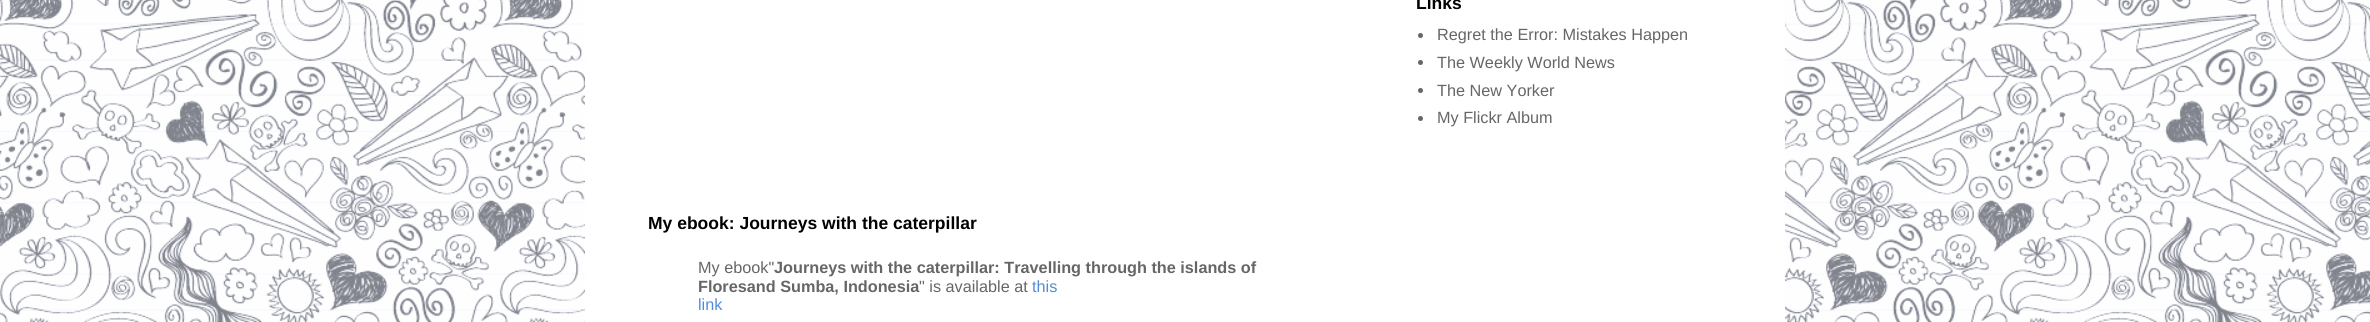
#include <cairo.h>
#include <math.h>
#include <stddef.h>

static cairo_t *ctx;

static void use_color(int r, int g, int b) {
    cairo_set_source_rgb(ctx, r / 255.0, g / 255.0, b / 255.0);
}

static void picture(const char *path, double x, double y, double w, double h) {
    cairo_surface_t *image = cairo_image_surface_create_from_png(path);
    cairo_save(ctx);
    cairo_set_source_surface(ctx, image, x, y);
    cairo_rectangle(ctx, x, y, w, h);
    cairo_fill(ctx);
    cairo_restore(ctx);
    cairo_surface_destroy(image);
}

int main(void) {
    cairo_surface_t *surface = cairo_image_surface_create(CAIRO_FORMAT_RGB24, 2370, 322);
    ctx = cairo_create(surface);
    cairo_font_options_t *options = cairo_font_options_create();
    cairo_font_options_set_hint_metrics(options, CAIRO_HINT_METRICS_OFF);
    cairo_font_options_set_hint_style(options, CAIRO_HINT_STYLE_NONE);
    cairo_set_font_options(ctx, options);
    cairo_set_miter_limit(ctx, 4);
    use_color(207, 217, 246);
    cairo_paint(ctx);
    picture("img1.png", 0, 0, 2370, 322);
    use_color(255, 255, 255);
    cairo_rectangle(ctx, 585, 0, 1200, 322);
    cairo_fill(ctx);
    cairo_select_font_face(ctx, "Liberation Sans", CAIRO_FONT_SLANT_NORMAL, CAIRO_FONT_WEIGHT_BOLD);
    cairo_set_font_size(ctx, 17.5);
    use_color(0, 0, 0);
    cairo_move_to(ctx, 1416, 9);
    cairo_show_text(ctx, "Links");
    use_color(102, 102, 102);
    cairo_new_path(ctx);
    cairo_arc(ctx, 1420.5, 35.5, 2.5, 0, 2 * M_PI);
    cairo_fill(ctx);
    cairo_select_font_face(ctx, "Liberation Sans", CAIRO_FONT_SLANT_NORMAL, CAIRO_FONT_WEIGHT_NORMAL);
    cairo_set_font_size(ctx, 16.25);
    cairo_move_to(ctx, 1437, 40);
    cairo_show_text(ctx, "Regret the Error: Mistakes Happen");
    cairo_new_path(ctx);
    cairo_arc(ctx, 1420.5, 62.5, 2.5, 0, 2 * M_PI);
    cairo_fill(ctx);
    cairo_move_to(ctx, 1437, 68);
    cairo_show_text(ctx, "The Weekly World News");
    cairo_new_path(ctx);
    cairo_arc(ctx, 1420.5, 90.5, 2.5, 0, 2 * M_PI);
    cairo_fill(ctx);
    cairo_move_to(ctx, 1437, 96);
    cairo_show_text(ctx, "The New Yorker");
    cairo_new_path(ctx);
    cairo_arc(ctx, 1420.5, 118.5, 2.5, 0, 2 * M_PI);
    cairo_fill(ctx);
    cairo_move_to(ctx, 1437, 123);
    cairo_show_text(ctx, "My Flickr Album");
    cairo_select_font_face(ctx, "Liberation Sans", CAIRO_FONT_SLANT_NORMAL, CAIRO_FONT_WEIGHT_BOLD);
    cairo_set_font_size(ctx, 17.5);
    use_color(0, 0, 0);
    cairo_move_to(ctx, 648, 229);
    cairo_show_text(ctx, "My ebook: Journeys with the caterpillar");
    cairo_select_font_face(ctx, "Liberation Sans", CAIRO_FONT_SLANT_NORMAL, CAIRO_FONT_WEIGHT_NORMAL);
    cairo_set_font_size(ctx, 16.25);
    use_color(102, 102, 102);
    cairo_move_to(ctx, 698, 273);
    cairo_show_text(ctx, "My ebook\"");
    cairo_select_font_face(ctx, "Liberation Sans", CAIRO_FONT_SLANT_NORMAL, CAIRO_FONT_WEIGHT_BOLD);
    cairo_move_to(ctx, 774, 273);
    cairo_show_text(ctx, "Journeys with the caterpillar: Travelling through the islands of");
    cairo_move_to(ctx, 698, 292);
    cairo_show_text(ctx, "Floresand Sumba, Indonesia");
    cairo_select_font_face(ctx, "Liberation Sans", CAIRO_FONT_SLANT_NORMAL, CAIRO_FONT_WEIGHT_NORMAL);
    cairo_move_to(ctx, 919, 292);
    cairo_show_text(ctx, "\" is available at");
    use_color(83, 140, 214);
    cairo_move_to(ctx, 1032, 292);
    cairo_show_text(ctx, "this");
    cairo_move_to(ctx, 698, 310);
    cairo_show_text(ctx, "link");
    cairo_surface_write_to_png(surface, "result.png");
    cairo_font_options_destroy(options);
    cairo_destroy(ctx);
    cairo_surface_destroy(surface);
    return 0;
}
